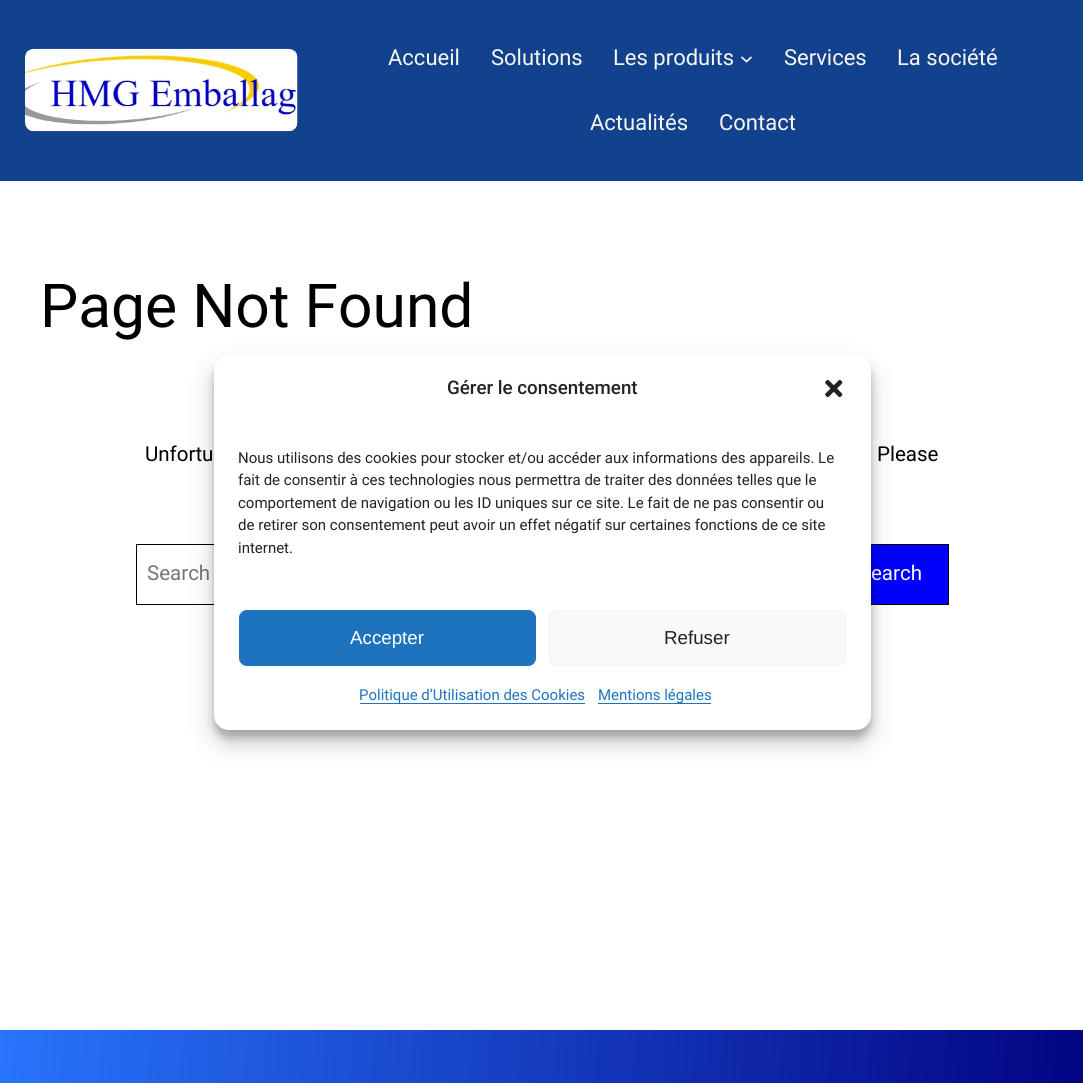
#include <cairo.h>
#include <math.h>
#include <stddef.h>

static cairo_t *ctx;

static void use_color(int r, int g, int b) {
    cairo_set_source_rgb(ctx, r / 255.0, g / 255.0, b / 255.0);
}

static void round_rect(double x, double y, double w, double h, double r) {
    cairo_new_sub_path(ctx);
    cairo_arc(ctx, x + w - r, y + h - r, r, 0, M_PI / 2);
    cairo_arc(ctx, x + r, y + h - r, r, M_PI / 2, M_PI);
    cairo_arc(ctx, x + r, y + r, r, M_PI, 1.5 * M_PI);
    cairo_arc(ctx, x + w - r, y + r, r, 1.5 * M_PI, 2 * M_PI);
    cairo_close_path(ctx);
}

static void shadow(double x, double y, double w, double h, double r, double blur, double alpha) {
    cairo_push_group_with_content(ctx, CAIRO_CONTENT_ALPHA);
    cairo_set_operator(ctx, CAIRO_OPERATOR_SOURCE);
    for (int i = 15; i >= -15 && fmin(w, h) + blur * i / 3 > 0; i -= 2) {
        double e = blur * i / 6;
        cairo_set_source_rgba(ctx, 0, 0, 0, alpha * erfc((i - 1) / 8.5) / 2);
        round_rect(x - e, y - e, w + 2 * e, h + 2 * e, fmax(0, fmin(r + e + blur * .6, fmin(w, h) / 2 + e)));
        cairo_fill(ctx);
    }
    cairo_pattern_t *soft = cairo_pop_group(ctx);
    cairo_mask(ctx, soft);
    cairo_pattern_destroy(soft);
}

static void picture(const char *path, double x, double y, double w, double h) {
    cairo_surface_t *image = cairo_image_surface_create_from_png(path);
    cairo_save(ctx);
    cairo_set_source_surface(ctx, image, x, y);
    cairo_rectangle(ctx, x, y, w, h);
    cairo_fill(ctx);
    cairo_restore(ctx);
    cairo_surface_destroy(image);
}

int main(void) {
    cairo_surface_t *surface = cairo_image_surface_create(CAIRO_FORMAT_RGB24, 1083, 1083);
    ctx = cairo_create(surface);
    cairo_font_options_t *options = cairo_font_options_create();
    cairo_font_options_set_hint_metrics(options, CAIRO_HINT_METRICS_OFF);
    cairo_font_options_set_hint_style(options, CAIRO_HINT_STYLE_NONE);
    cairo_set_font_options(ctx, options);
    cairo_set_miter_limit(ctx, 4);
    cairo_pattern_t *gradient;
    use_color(255, 255, 255);
    cairo_paint(ctx);
    use_color(18, 65, 141);
    cairo_rectangle(ctx, 0, 0, 1083, 181);
    cairo_fill(ctx);
    picture("img1.png", 25, 48, 273, 84);
    cairo_select_font_face(ctx, "Roboto", CAIRO_FONT_SLANT_NORMAL, CAIRO_FONT_WEIGHT_NORMAL);
    cairo_set_font_size(ctx, 22);
    use_color(249, 247, 240);
    cairo_move_to(ctx, 388, 65);
    cairo_show_text(ctx, "Accueil");
    cairo_move_to(ctx, 491, 65);
    cairo_show_text(ctx, "Solutions");
    cairo_move_to(ctx, 613, 65);
    cairo_show_text(ctx, "Les produits");
    cairo_new_path(ctx);
    cairo_move_to(ctx, 741.5, 57);
    cairo_line_to(ctx, 746.5, 61.5);
    cairo_line_to(ctx, 751.5, 57);
    cairo_set_line_width(ctx, 1.7);
    cairo_stroke(ctx);
    cairo_move_to(ctx, 784, 65);
    cairo_show_text(ctx, "Services");
    cairo_move_to(ctx, 897, 65);
    cairo_show_text(ctx, "La société");
    cairo_move_to(ctx, 590, 130);
    cairo_show_text(ctx, "Actualités");
    cairo_move_to(ctx, 719, 130);
    cairo_show_text(ctx, "Contact");
    cairo_set_font_size(ctx, 60.5);
    use_color(0, 0, 0);
    cairo_move_to(ctx, 40, 327);
    cairo_show_text(ctx, "Page Not Found");
    cairo_set_font_size(ctx, 20.5);
    cairo_move_to(ctx, 145, 461);
    cairo_show_text(ctx, "Unfortu");
    cairo_move_to(ctx, 877, 461);
    cairo_show_text(ctx, "Please");
    cairo_rectangle(ctx, 136.5, 544.5, 683, 60);
    use_color(0, 0, 1);
    cairo_set_line_width(ctx, 1);
    cairo_stroke(ctx);
    use_color(117, 117, 117);
    cairo_move_to(ctx, 147, 580);
    cairo_show_text(ctx, "Search");
    use_color(0, 0, 255);
    cairo_rectangle(ctx, 871, 545, 77, 59);
    cairo_fill(ctx);
    cairo_rectangle(ctx, 833.5, 544.5, 115, 60);
    use_color(0, 0, 1);
    cairo_stroke(ctx);
    use_color(255, 255, 255);
    cairo_move_to(ctx, 871, 580);
    cairo_show_text(ctx, "earch");
    gradient = cairo_pattern_create_linear(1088, 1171, -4.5, 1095);
    cairo_pattern_add_color_stop_rgba(gradient, 0, 0.008, 0.012, 0.506, 1);
    cairo_pattern_add_color_stop_rgba(gradient, 1, 0.157, 0.455, 0.988, 1);
    cairo_set_source(ctx, gradient);
    cairo_pattern_destroy(gradient);
    cairo_rectangle(ctx, 0, 1030, 1083, 53);
    cairo_fill(ctx);
    use_color(0, 0, 0);
    shadow(214, 363, 657, 375, 15, 4, 0.23);
    shadow(214, 368, 657, 375, 15, 12.5, 0.19);
    use_color(255, 255, 255);
    round_rect(214, 355, 657, 375, 15);
    cairo_fill(ctx);
    cairo_select_font_face(ctx, "Roboto Medium", CAIRO_FONT_SLANT_NORMAL, CAIRO_FONT_WEIGHT_NORMAL);
    cairo_set_font_size(ctx, 18.75);
    use_color(34, 34, 34);
    cairo_move_to(ctx, 447, 394);
    cairo_show_text(ctx, "Gérer le consentement");
    picture("img2.png", 825, 379, 18, 19);
    cairo_select_font_face(ctx, "Roboto", CAIRO_FONT_SLANT_NORMAL, CAIRO_FONT_WEIGHT_NORMAL);
    cairo_set_font_size(ctx, 15);
    cairo_move_to(ctx, 238, 463);
    cairo_show_text(ctx, "Nous utilisons des cookies pour stocker et/ou accéder aux informations des appareils. Le");
    cairo_move_to(ctx, 238, 485);
    cairo_show_text(ctx, "fait de consentir à ces technologies nous permettra de traiter des données telles que le");
    cairo_move_to(ctx, 238, 508);
    cairo_show_text(ctx, "comportement de navigation ou les ID uniques sur ce site. Le fait de ne pas consentir ou");
    cairo_move_to(ctx, 238, 530);
    cairo_show_text(ctx, "de retirer son consentement peut avoir un effet négatif sur certaines fonctions de ce site");
    cairo_move_to(ctx, 238, 553);
    cairo_show_text(ctx, "internet.");
    use_color(30, 115, 190);
    round_rect(239.5, 610.5, 296, 55, 7.5);
    cairo_fill_preserve(ctx);
    cairo_stroke(ctx);
    cairo_select_font_face(ctx, "Liberation Sans", CAIRO_FONT_SLANT_NORMAL, CAIRO_FONT_WEIGHT_NORMAL);
    cairo_set_font_size(ctx, 18.75);
    use_color(255, 255, 255);
    cairo_move_to(ctx, 350, 644);
    cairo_show_text(ctx, "Accepter");
    use_color(249, 249, 249);
    round_rect(549.5, 610.5, 296, 55, 7.5);
    cairo_fill_preserve(ctx);
    use_color(242, 242, 242);
    cairo_stroke(ctx);
    use_color(34, 34, 34);
    cairo_move_to(ctx, 664, 644);
    cairo_show_text(ctx, "Refuser");
    use_color(30, 115, 190);
    cairo_rectangle(ctx, 360, 703, 225, 1);
    cairo_fill(ctx);
    cairo_select_font_face(ctx, "Roboto", CAIRO_FONT_SLANT_NORMAL, CAIRO_FONT_WEIGHT_NORMAL);
    cairo_set_font_size(ctx, 15);
    cairo_move_to(ctx, 359, 700);
    cairo_show_text(ctx, "Politique d’Utilisation des Cookies");
    cairo_rectangle(ctx, 598, 703, 113, 1);
    cairo_fill(ctx);
    cairo_move_to(ctx, 598, 700);
    cairo_show_text(ctx, "Mentions légales");
    cairo_surface_write_to_png(surface, "result.png");
    cairo_font_options_destroy(options);
    cairo_destroy(ctx);
    cairo_surface_destroy(surface);
    return 0;
}
